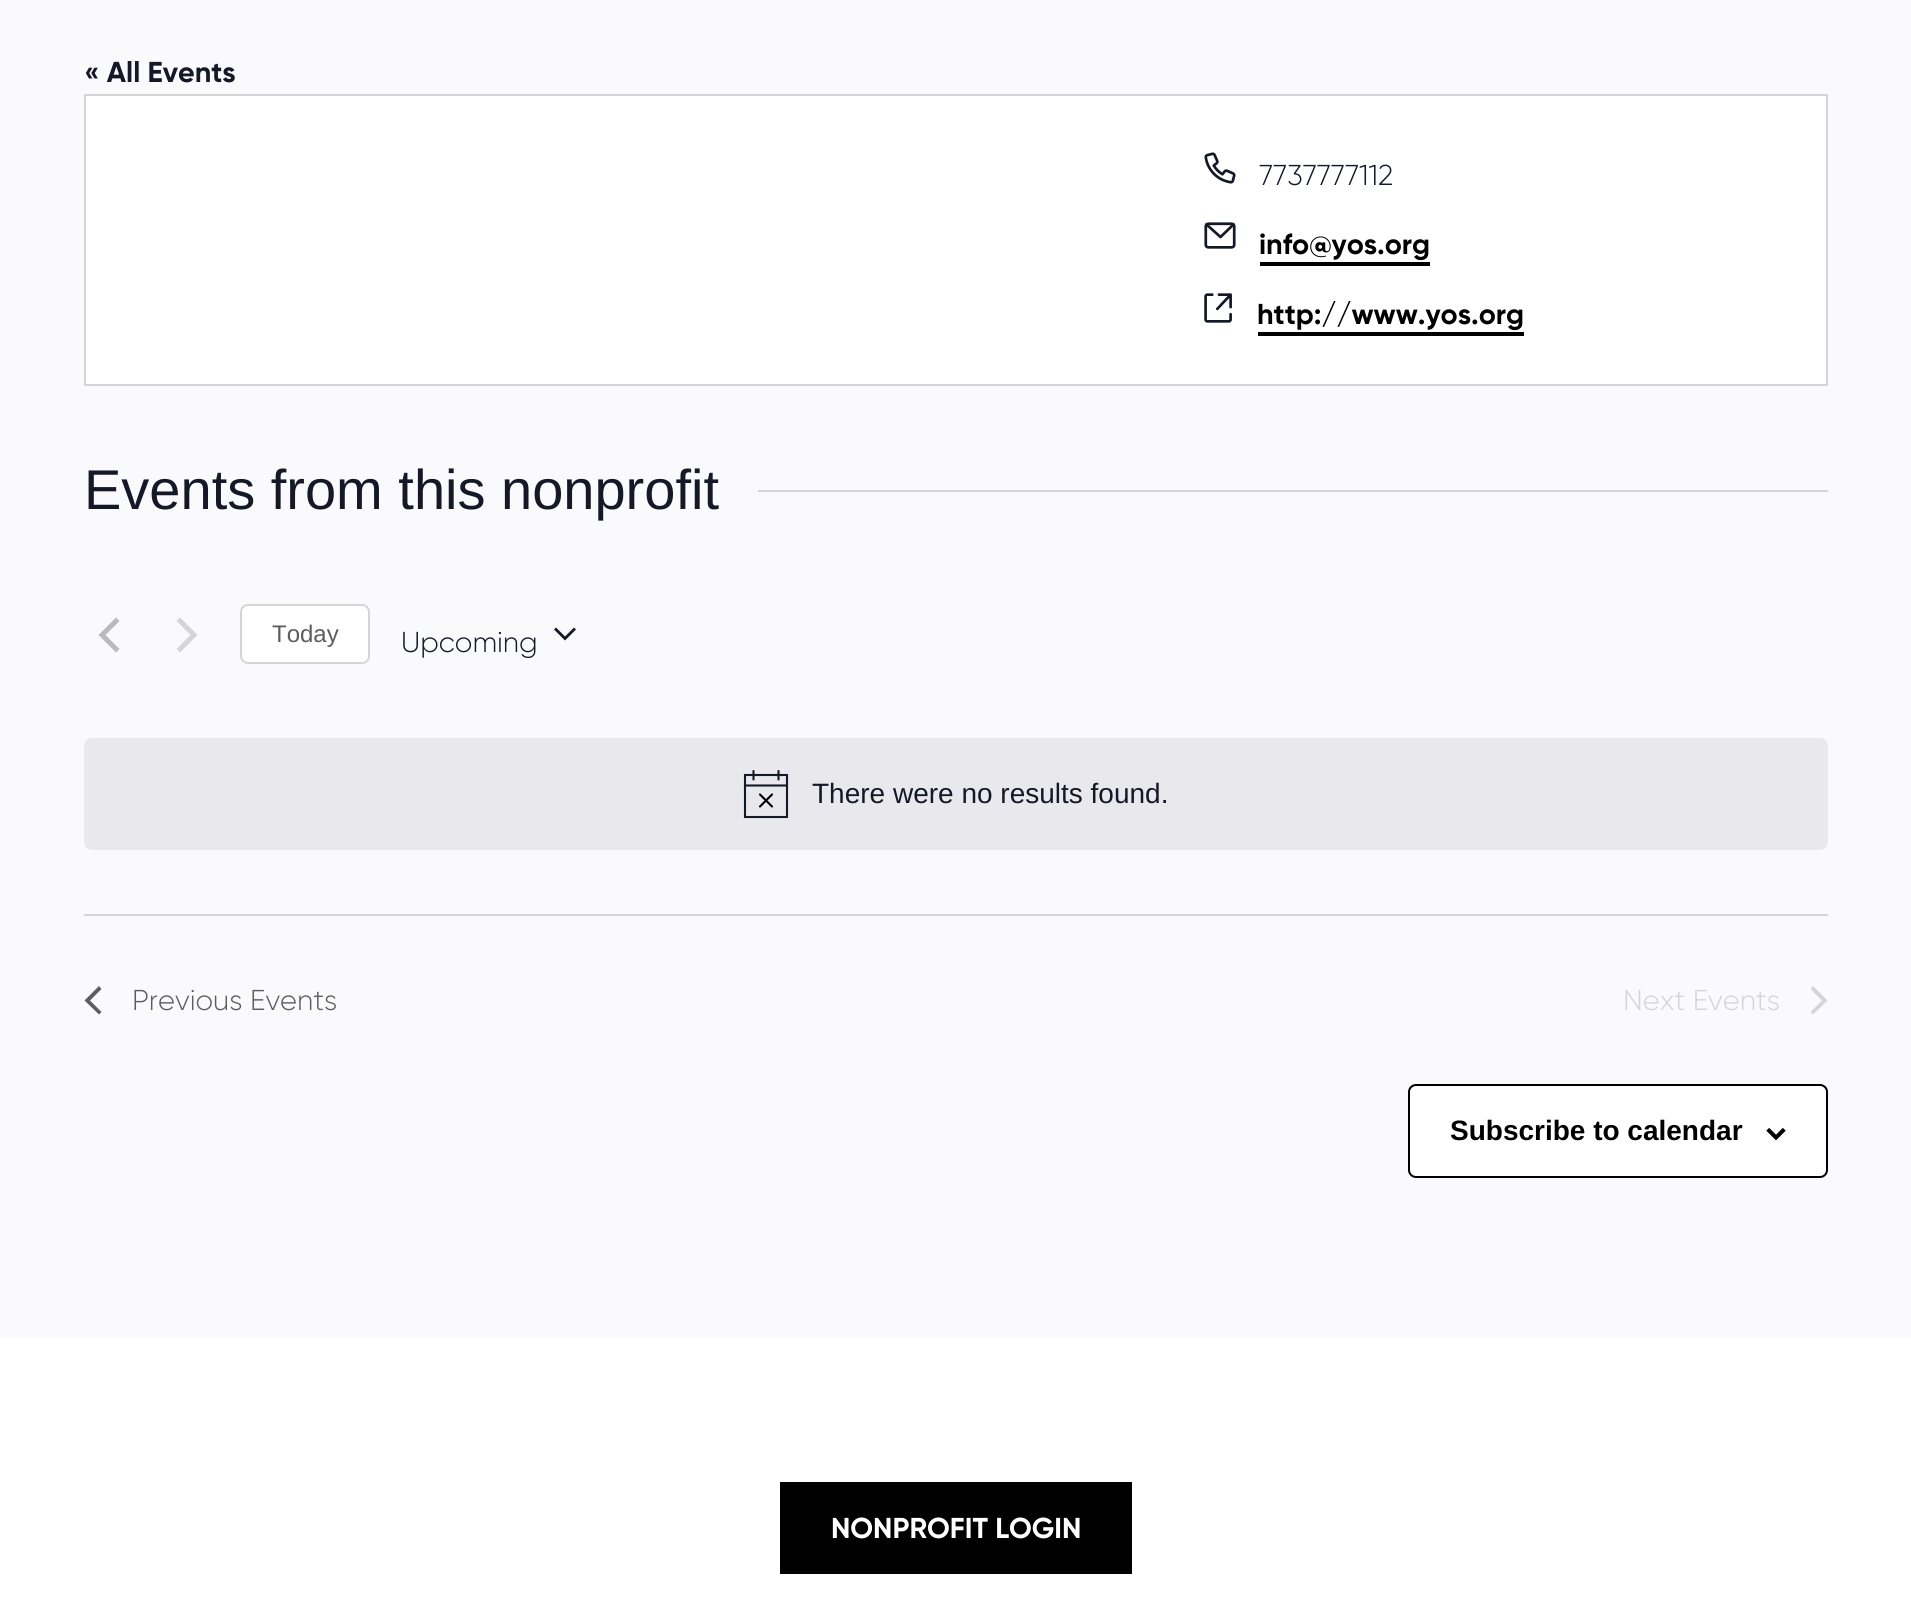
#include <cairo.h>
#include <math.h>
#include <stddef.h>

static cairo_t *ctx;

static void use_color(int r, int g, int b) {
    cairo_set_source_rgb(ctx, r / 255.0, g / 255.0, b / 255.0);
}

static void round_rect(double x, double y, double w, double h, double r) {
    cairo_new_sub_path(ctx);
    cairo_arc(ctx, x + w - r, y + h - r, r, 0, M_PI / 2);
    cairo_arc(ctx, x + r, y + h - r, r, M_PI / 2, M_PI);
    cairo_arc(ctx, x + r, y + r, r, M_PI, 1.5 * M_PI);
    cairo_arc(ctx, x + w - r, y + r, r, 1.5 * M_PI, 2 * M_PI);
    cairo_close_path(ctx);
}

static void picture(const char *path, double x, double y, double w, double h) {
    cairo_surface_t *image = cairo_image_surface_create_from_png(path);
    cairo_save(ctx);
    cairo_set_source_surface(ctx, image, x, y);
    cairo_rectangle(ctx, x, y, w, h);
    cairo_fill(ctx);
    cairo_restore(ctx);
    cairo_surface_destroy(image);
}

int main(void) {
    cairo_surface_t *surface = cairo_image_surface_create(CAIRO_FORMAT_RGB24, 1911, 1612);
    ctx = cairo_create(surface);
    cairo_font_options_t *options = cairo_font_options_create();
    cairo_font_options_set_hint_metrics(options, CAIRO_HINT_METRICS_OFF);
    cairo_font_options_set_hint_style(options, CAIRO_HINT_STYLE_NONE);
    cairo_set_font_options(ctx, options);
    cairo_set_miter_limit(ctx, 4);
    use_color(250, 249, 252);
    cairo_paint(ctx);
    cairo_select_font_face(ctx, "Gilroy", CAIRO_FONT_SLANT_NORMAL, CAIRO_FONT_WEIGHT_BOLD);
    cairo_set_font_size(ctx, 28.75);
    use_color(20, 24, 39);
    cairo_move_to(ctx, 84, 82);
    cairo_show_text(ctx, "« All Events");
    use_color(255, 255, 255);
    cairo_rectangle(ctx, 85, 95, 1742, 290);
    cairo_fill_preserve(ctx);
    use_color(213, 213, 213);
    cairo_stroke(ctx);
    picture("img1.png", 1204, 152, 32, 32);
    cairo_select_font_face(ctx, "Gilroy Light", CAIRO_FONT_SLANT_NORMAL, CAIRO_FONT_WEIGHT_NORMAL);
    use_color(20, 24, 39);
    cairo_move_to(ctx, 1259, 185);
    cairo_show_text(ctx, "7737777112");
    picture("img2.png", 1204, 222, 32, 27);
    cairo_select_font_face(ctx, "Gilroy", CAIRO_FONT_SLANT_NORMAL, CAIRO_FONT_WEIGHT_BOLD);
    use_color(0, 0, 0);
    cairo_move_to(ctx, 1259, 254);
    cairo_show_text(ctx, "info@yos.org");
    cairo_rectangle(ctx, 1260, 262, 170, 4);
    cairo_fill(ctx);
    picture("img3.png", 1204, 293, 28, 30);
    cairo_move_to(ctx, 1257, 324);
    cairo_show_text(ctx, "http://www.yos.org");
    cairo_rectangle(ctx, 1258, 332, 266, 4);
    cairo_fill(ctx);
    cairo_select_font_face(ctx, "Liberation Sans", CAIRO_FONT_SLANT_NORMAL, CAIRO_FONT_WEIGHT_NORMAL);
    cairo_set_font_size(ctx, 56);
    use_color(20, 24, 39);
    cairo_move_to(ctx, 84, 509);
    cairo_show_text(ctx, "Events from this nonprofit");
    use_color(213, 213, 213);
    cairo_rectangle(ctx, 758, 490, 1070, 2);
    cairo_fill(ctx);
    use_color(186, 186, 186);
    cairo_new_path(ctx);
    cairo_move_to(ctx, 119.5, 649);
    cairo_line_to(ctx, 116, 652.5);
    cairo_line_to(ctx, 98.5, 635);
    cairo_line_to(ctx, 116, 617.5);
    cairo_line_to(ctx, 119.5, 621);
    cairo_line_to(ctx, 105.5, 635);
    cairo_close_path(ctx);
    cairo_fill(ctx);
    use_color(213, 213, 213);
    cairo_new_path(ctx);
    cairo_move_to(ctx, 176.5, 621);
    cairo_line_to(ctx, 180, 617.5);
    cairo_line_to(ctx, 197.5, 635);
    cairo_line_to(ctx, 180, 652.5);
    cairo_line_to(ctx, 176.5, 649);
    cairo_line_to(ctx, 190.5, 635);
    cairo_close_path(ctx);
    cairo_fill(ctx);
    use_color(255, 255, 255);
    round_rect(241, 605, 128, 58, 7);
    cairo_fill_preserve(ctx);
    use_color(213, 213, 213);
    cairo_stroke(ctx);
    cairo_set_font_size(ctx, 24);
    use_color(93, 93, 93);
    cairo_move_to(ctx, 272, 642);
    cairo_show_text(ctx, "Today");
    cairo_select_font_face(ctx, "Gilroy Light", CAIRO_FONT_SLANT_NORMAL, CAIRO_FONT_WEIGHT_NORMAL);
    cairo_set_font_size(ctx, 28.75);
    use_color(20, 24, 39);
    cairo_move_to(ctx, 401, 652);
    cairo_show_text(ctx, "Upcoming");
    cairo_set_fill_rule(ctx, CAIRO_FILL_RULE_EVEN_ODD);
    cairo_new_path(ctx);
    cairo_move_to(ctx, 556, 627.5);
    cairo_line_to(ctx, 565, 636.5);
    cairo_line_to(ctx, 574, 627.5);
    cairo_line_to(ctx, 576, 629.5);
    cairo_line_to(ctx, 565, 640.5);
    cairo_line_to(ctx, 554, 629.5);
    cairo_close_path(ctx);
    cairo_fill(ctx);
    use_color(233, 233, 237);
    round_rect(84, 738, 1744, 112, 8);
    cairo_fill(ctx);
    cairo_new_path(ctx);
    cairo_move_to(ctx, 745, 775);
    cairo_line_to(ctx, 787, 775);
    cairo_line_to(ctx, 787, 817);
    cairo_line_to(ctx, 745, 817);
    cairo_close_path(ctx);
    use_color(20, 24, 39);
    cairo_set_line_width(ctx, 2.1);
    cairo_stroke(ctx);
    cairo_new_path(ctx);
    cairo_move_to(ctx, 760, 794.5);
    cairo_line_to(ctx, 772, 806.5);
    cairo_move_to(ctx, 772, 794.5);
    cairo_line_to(ctx, 760, 806.5);
    use_color(0, 0, 0);
    cairo_set_line_cap(ctx, CAIRO_LINE_CAP_ROUND);
    cairo_stroke(ctx);
    cairo_new_path(ctx);
    cairo_move_to(ctx, 753.5, 771);
    cairo_line_to(ctx, 753.5, 779.5);
    cairo_move_to(ctx, 778.5, 771);
    cairo_line_to(ctx, 778.5, 779.5);
    use_color(20, 24, 39);
    cairo_stroke(ctx);
    cairo_new_path(ctx);
    cairo_move_to(ctx, 745, 785.5);
    cairo_line_to(ctx, 787, 785.5);
    cairo_set_line_cap(ctx, CAIRO_LINE_CAP_SQUARE);
    cairo_stroke(ctx);
    cairo_select_font_face(ctx, "Liberation Sans", CAIRO_FONT_SLANT_NORMAL, CAIRO_FONT_WEIGHT_NORMAL);
    cairo_set_font_size(ctx, 28);
    cairo_move_to(ctx, 812, 803);
    cairo_show_text(ctx, "There were no results found.");
    use_color(213, 213, 213);
    cairo_rectangle(ctx, 84, 914, 1744, 2);
    cairo_fill(ctx);
    use_color(93, 93, 93);
    cairo_set_fill_rule(ctx, CAIRO_FILL_RULE_WINDING);
    cairo_new_path(ctx);
    cairo_move_to(ctx, 101.5, 1012);
    cairo_line_to(ctx, 99, 1014.5);
    cairo_line_to(ctx, 84.5, 1000.5);
    cairo_line_to(ctx, 99, 986);
    cairo_line_to(ctx, 101.5, 989);
    cairo_line_to(ctx, 90, 1000.5);
    cairo_close_path(ctx);
    cairo_fill(ctx);
    cairo_select_font_face(ctx, "Gilroy Light", CAIRO_FONT_SLANT_NORMAL, CAIRO_FONT_WEIGHT_NORMAL);
    cairo_set_font_size(ctx, 28.75);
    cairo_move_to(ctx, 132, 1010);
    cairo_show_text(ctx, "Previous Events");
    use_color(213, 213, 213);
    cairo_move_to(ctx, 1623, 1010);
    cairo_show_text(ctx, "Next Events");
    cairo_new_path(ctx);
    cairo_move_to(ctx, 1810.5, 989);
    cairo_line_to(ctx, 1813, 986);
    cairo_line_to(ctx, 1827.5, 1000.5);
    cairo_line_to(ctx, 1813, 1014.5);
    cairo_line_to(ctx, 1810.5, 1012);
    cairo_line_to(ctx, 1822, 1000.5);
    cairo_close_path(ctx);
    cairo_fill(ctx);
    use_color(255, 255, 255);
    round_rect(1409, 1085, 418, 92, 7);
    cairo_fill_preserve(ctx);
    use_color(0, 0, 0);
    cairo_set_line_width(ctx, 2);
    cairo_set_line_cap(ctx, CAIRO_LINE_CAP_BUTT);
    cairo_stroke(ctx);
    cairo_select_font_face(ctx, "Liberation Sans", CAIRO_FONT_SLANT_NORMAL, CAIRO_FONT_WEIGHT_BOLD);
    cairo_set_font_size(ctx, 28);
    cairo_move_to(ctx, 1450, 1140);
    cairo_show_text(ctx, "Subscribe to calendar");
    picture("img4.png", 1766, 1128, 20, 12);
    use_color(255, 255, 255);
    cairo_rectangle(ctx, 0, 1338, 1911, 274);
    cairo_fill(ctx);
    use_color(0, 0, 0);
    cairo_rectangle(ctx, 780, 1482, 352, 92);
    cairo_fill(ctx);
    cairo_select_font_face(ctx, "Gilroy", CAIRO_FONT_SLANT_NORMAL, CAIRO_FONT_WEIGHT_BOLD);
    cairo_set_font_size(ctx, 28.75);
    use_color(255, 255, 255);
    cairo_move_to(ctx, 831, 1538);
    cairo_show_text(ctx, "NONPROFIT LOGIN");
    cairo_surface_write_to_png(surface, "result.png");
    cairo_font_options_destroy(options);
    cairo_destroy(ctx);
    cairo_surface_destroy(surface);
    return 0;
}
